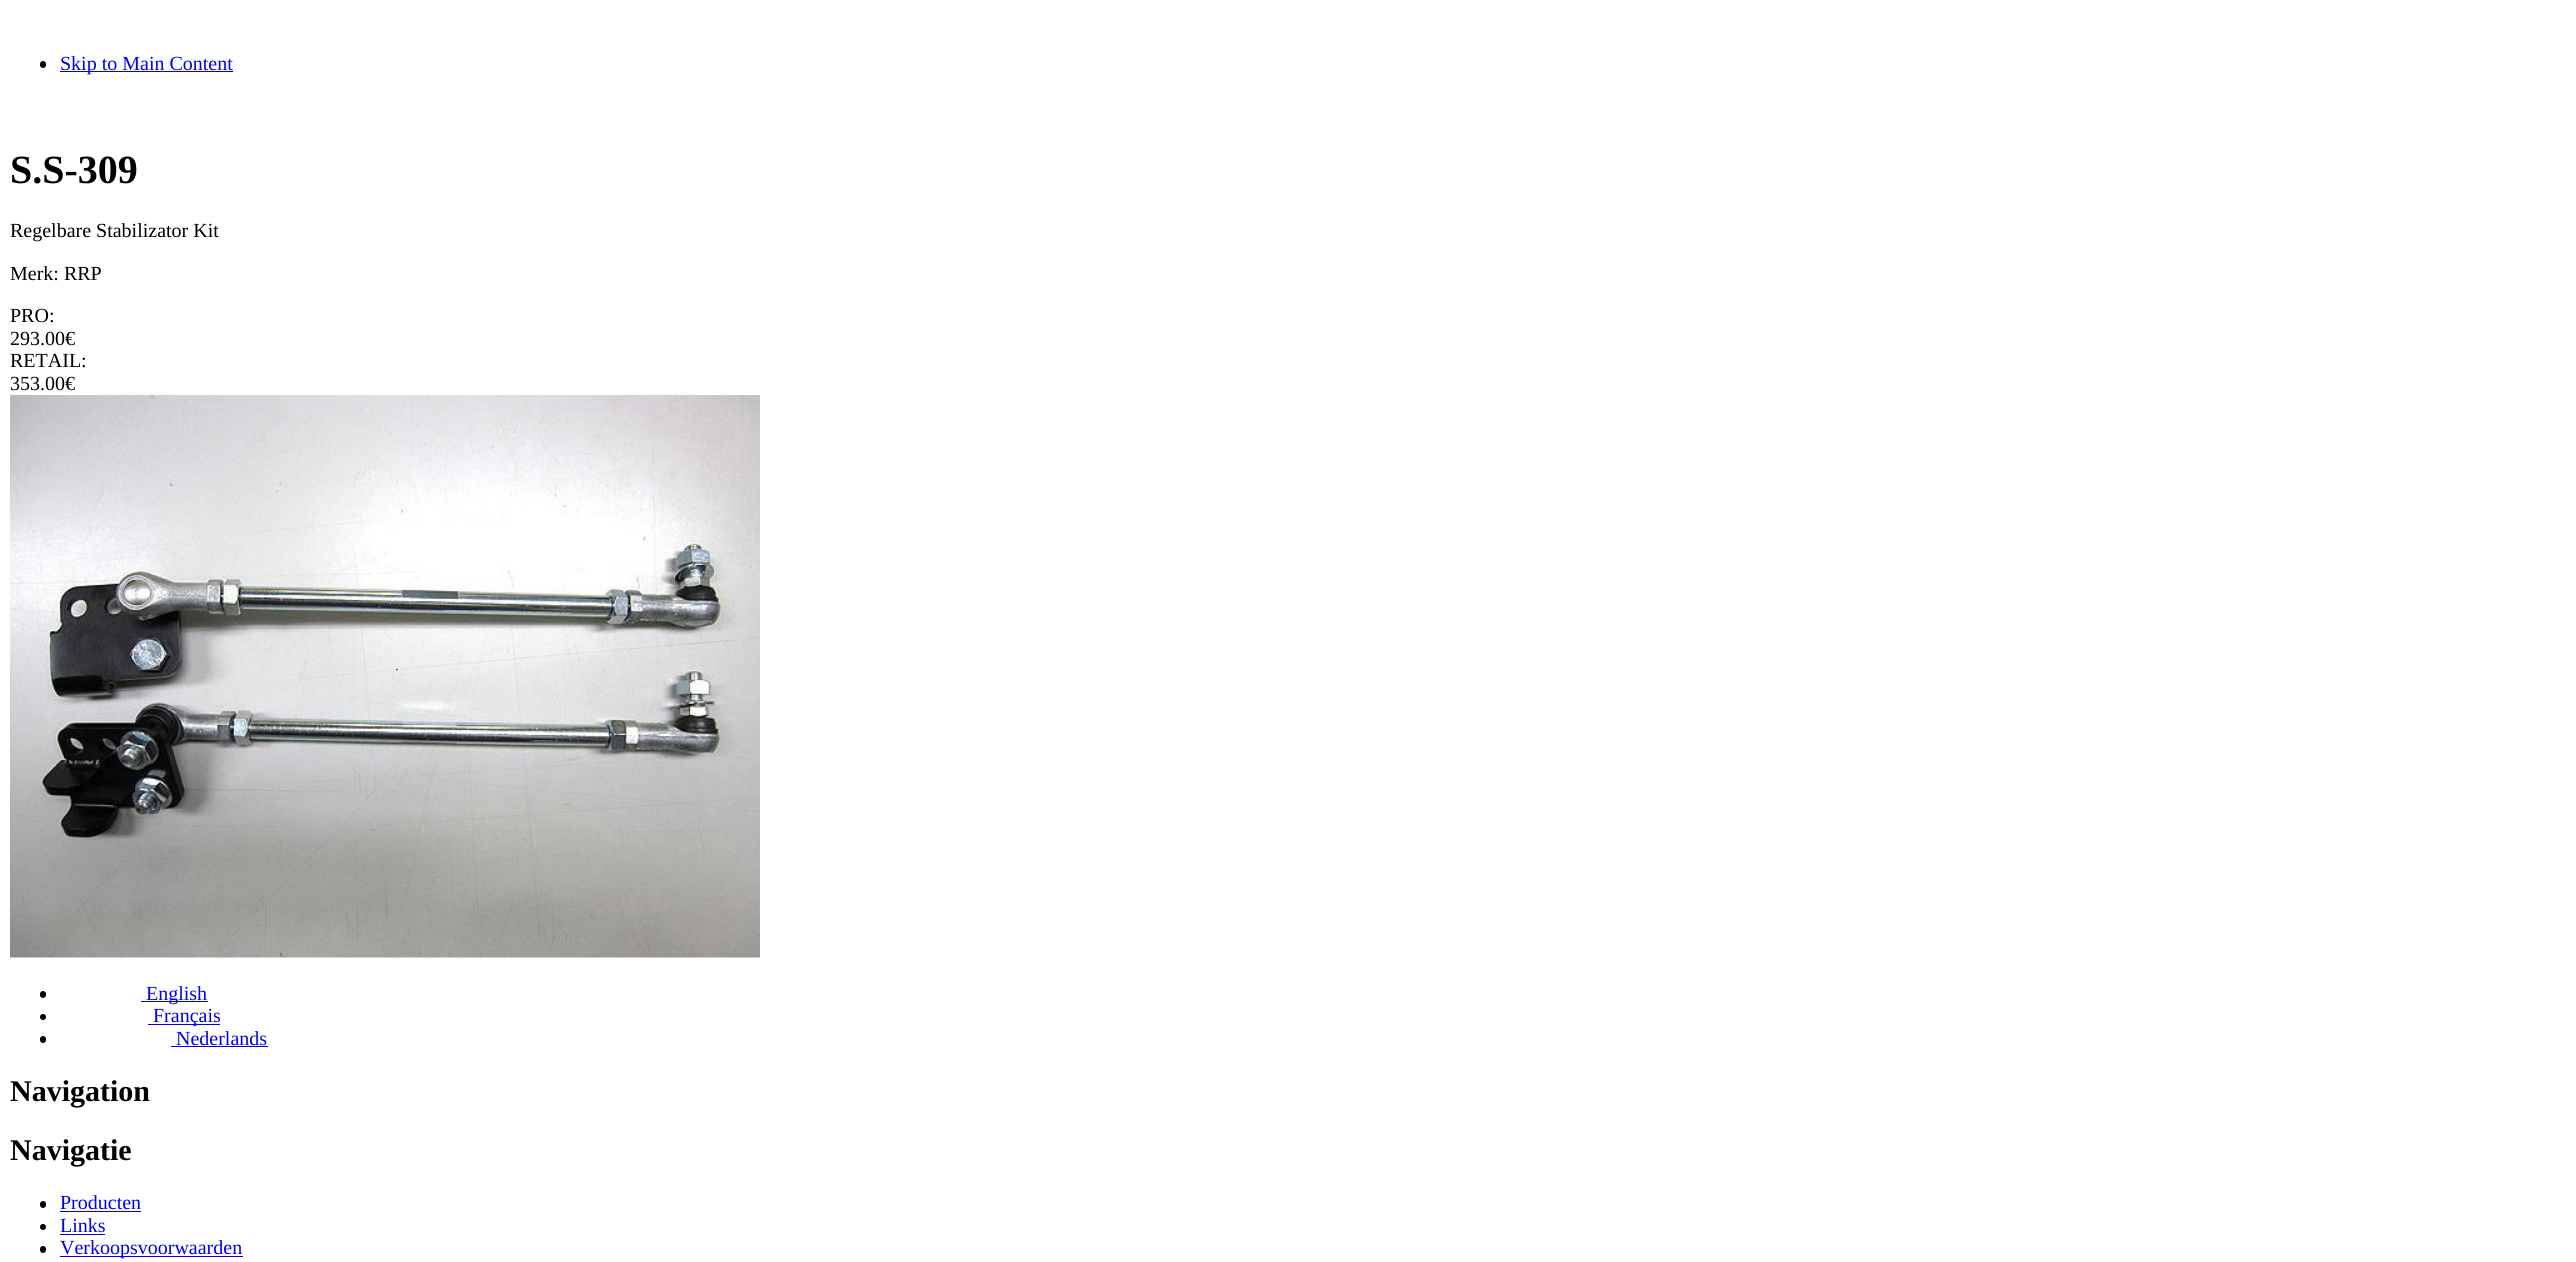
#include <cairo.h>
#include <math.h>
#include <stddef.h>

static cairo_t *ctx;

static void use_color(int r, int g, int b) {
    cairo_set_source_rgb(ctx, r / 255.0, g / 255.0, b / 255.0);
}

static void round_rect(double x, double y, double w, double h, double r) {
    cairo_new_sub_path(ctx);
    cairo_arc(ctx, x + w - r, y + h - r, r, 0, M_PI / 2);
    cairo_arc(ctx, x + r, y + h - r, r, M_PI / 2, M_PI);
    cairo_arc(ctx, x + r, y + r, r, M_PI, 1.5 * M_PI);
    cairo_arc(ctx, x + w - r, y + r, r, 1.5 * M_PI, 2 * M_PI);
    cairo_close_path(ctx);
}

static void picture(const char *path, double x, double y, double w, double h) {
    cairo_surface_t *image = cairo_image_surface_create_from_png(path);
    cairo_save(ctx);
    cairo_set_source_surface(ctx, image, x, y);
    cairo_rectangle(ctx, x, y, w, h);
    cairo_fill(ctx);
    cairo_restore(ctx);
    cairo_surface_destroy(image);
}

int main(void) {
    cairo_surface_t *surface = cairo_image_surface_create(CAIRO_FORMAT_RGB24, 2576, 1262);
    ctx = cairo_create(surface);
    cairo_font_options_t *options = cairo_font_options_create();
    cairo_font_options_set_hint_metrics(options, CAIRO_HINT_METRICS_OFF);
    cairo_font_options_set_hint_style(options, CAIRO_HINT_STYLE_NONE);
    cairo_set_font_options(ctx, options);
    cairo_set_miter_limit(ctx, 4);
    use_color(255, 255, 255);
    cairo_paint(ctx);
    use_color(0, 0, 0);
    round_rect(40, 61, 6, 7, 3);
    cairo_fill(ctx);
    use_color(0, 0, 238);
    cairo_rectangle(ctx, 60, 71, 173, 1);
    cairo_fill(ctx);
    cairo_select_font_face(ctx, "Liberation Serif", CAIRO_FONT_SLANT_NORMAL, CAIRO_FONT_WEIGHT_NORMAL);
    cairo_set_font_size(ctx, 20);
    cairo_move_to(ctx, 60, 70);
    cairo_show_text(ctx, "Skip to Main Content");
    cairo_select_font_face(ctx, "Liberation Serif", CAIRO_FONT_SLANT_NORMAL, CAIRO_FONT_WEIGHT_BOLD);
    cairo_set_font_size(ctx, 40);
    use_color(0, 0, 0);
    cairo_move_to(ctx, 10, 183);
    cairo_show_text(ctx, "S.S-309");
    cairo_select_font_face(ctx, "Liberation Serif", CAIRO_FONT_SLANT_NORMAL, CAIRO_FONT_WEIGHT_NORMAL);
    cairo_set_font_size(ctx, 20);
    cairo_move_to(ctx, 10, 237);
    cairo_show_text(ctx, "Regelbare Stabilizator Kit");
    cairo_move_to(ctx, 10, 280);
    cairo_show_text(ctx, "Merk: RRP");
    cairo_move_to(ctx, 10, 322);
    cairo_show_text(ctx, "PRO:");
    cairo_move_to(ctx, 10, 345);
    cairo_show_text(ctx, "293.00€");
    cairo_move_to(ctx, 10, 367);
    cairo_show_text(ctx, "RETAIL:");
    cairo_move_to(ctx, 10, 390);
    cairo_show_text(ctx, "353.00€");
    picture("img1.png", 10, 395, 750, 563);
    round_rect(40, 991, 6, 7, 3);
    cairo_fill(ctx);
    use_color(0, 0, 238);
    cairo_rectangle(ctx, 141, 1001, 67, 1);
    cairo_fill(ctx);
    cairo_move_to(ctx, 146, 1000);
    cairo_show_text(ctx, "English");
    use_color(0, 0, 0);
    cairo_new_path(ctx);
    cairo_arc(ctx, 43, 1017, 3, 0, 2 * M_PI);
    cairo_fill(ctx);
    use_color(0, 0, 238);
    cairo_rectangle(ctx, 148, 1024, 72, 1);
    cairo_fill(ctx);
    cairo_move_to(ctx, 153, 1022);
    cairo_show_text(ctx, "Français");
    use_color(0, 0, 0);
    round_rect(40, 1036, 6, 7, 3);
    cairo_fill(ctx);
    use_color(0, 0, 238);
    cairo_move_to(ctx, 176, 1045);
    cairo_show_text(ctx, "Nederlands");
    cairo_rectangle(ctx, 171, 1046, 97, 1);
    cairo_fill(ctx);
    cairo_select_font_face(ctx, "Liberation Serif", CAIRO_FONT_SLANT_NORMAL, CAIRO_FONT_WEIGHT_BOLD);
    cairo_set_font_size(ctx, 30);
    use_color(0, 0, 0);
    cairo_move_to(ctx, 10, 1101);
    cairo_show_text(ctx, "Navigation");
    cairo_move_to(ctx, 10, 1160);
    cairo_show_text(ctx, "Navigatie");
    round_rect(40, 1201, 6, 7, 3);
    cairo_fill(ctx);
    cairo_select_font_face(ctx, "Liberation Serif", CAIRO_FONT_SLANT_NORMAL, CAIRO_FONT_WEIGHT_NORMAL);
    cairo_set_font_size(ctx, 20);
    use_color(0, 0, 238);
    cairo_move_to(ctx, 60, 1209);
    cairo_show_text(ctx, "Producten");
    cairo_rectangle(ctx, 60, 1211, 81, 1);
    cairo_fill(ctx);
    use_color(0, 0, 0);
    cairo_arc(ctx, 43, 1227, 3, 0, 2 * M_PI);
    cairo_fill(ctx);
    use_color(0, 0, 238);
    cairo_move_to(ctx, 60, 1232);
    cairo_show_text(ctx, "Links");
    cairo_rectangle(ctx, 60, 1234, 45, 1);
    cairo_fill(ctx);
    use_color(0, 0, 0);
    round_rect(40, 1246, 6, 7, 3);
    cairo_fill(ctx);
    use_color(0, 0, 238);
    cairo_rectangle(ctx, 60, 1256, 183, 1);
    cairo_fill(ctx);
    cairo_move_to(ctx, 60, 1254);
    cairo_show_text(ctx, "Verkoopsvoorwaarden");
    cairo_surface_write_to_png(surface, "result.png");
    cairo_font_options_destroy(options);
    cairo_destroy(ctx);
    cairo_surface_destroy(surface);
    return 0;
}
